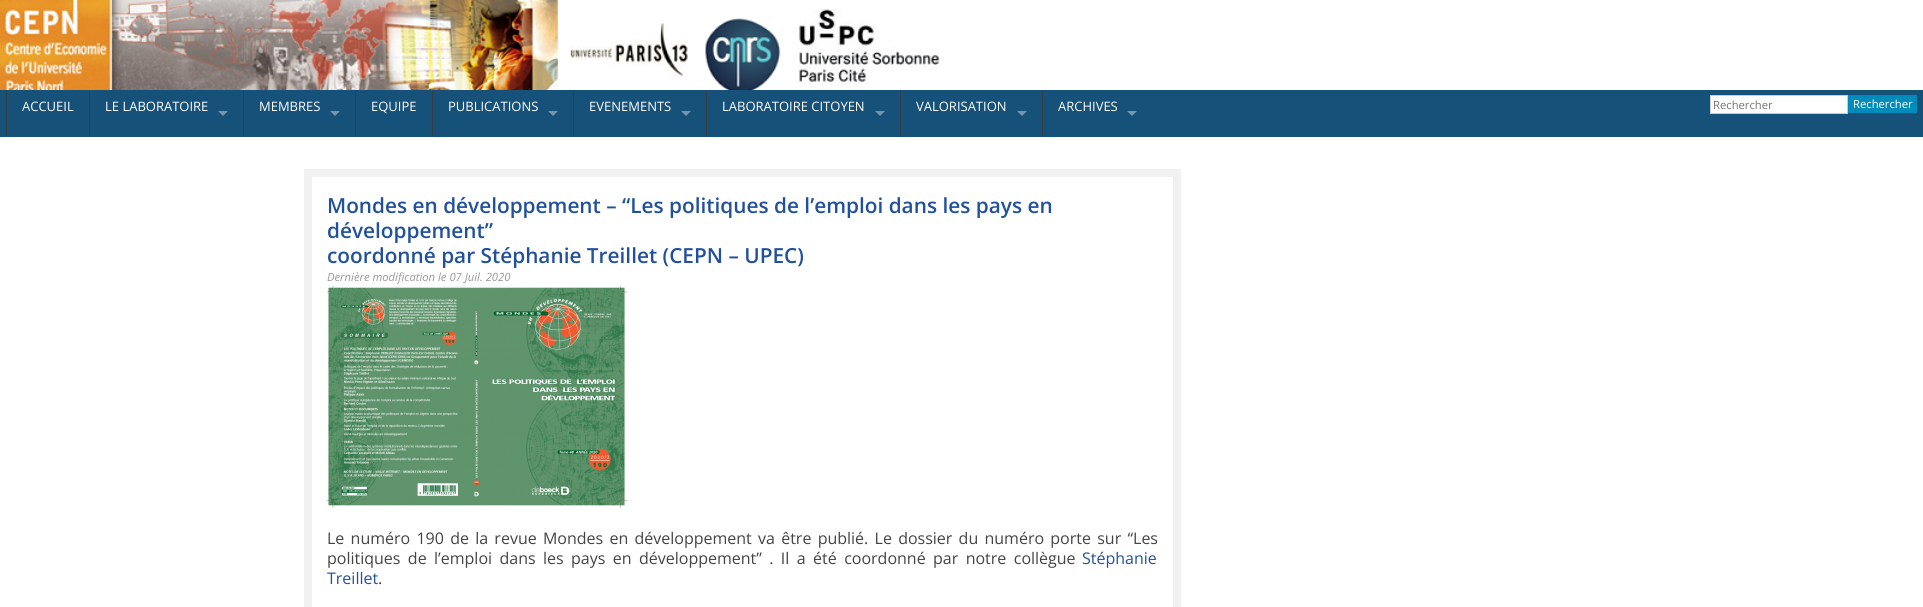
#include <cairo.h>
#include <math.h>
#include <stddef.h>

static cairo_t *ctx;

static void use_color(int r, int g, int b) {
    cairo_set_source_rgb(ctx, r / 255.0, g / 255.0, b / 255.0);
}

static void spaced_text(double x, double y, const char *s, double letter, double word) {
    cairo_move_to(ctx, x, y);
    while (*s) {
        char ch[5] = {0};
        int n = 0;
        do ch[n++] = *s++; while ((*s & 0xC0) == 0x80);
        cairo_show_text(ctx, ch);
        cairo_rel_move_to(ctx, letter + word * (*ch == ' '), 0);
    }
}

static void picture(const char *path, double x, double y, double w, double h) {
    cairo_surface_t *image = cairo_image_surface_create_from_png(path);
    cairo_save(ctx);
    cairo_set_source_surface(ctx, image, x, y);
    cairo_rectangle(ctx, x, y, w, h);
    cairo_fill(ctx);
    cairo_restore(ctx);
    cairo_surface_destroy(image);
}

int main(void) {
    cairo_surface_t *surface = cairo_image_surface_create(CAIRO_FORMAT_RGB24, 1923, 607);
    ctx = cairo_create(surface);
    cairo_font_options_t *options = cairo_font_options_create();
    cairo_font_options_set_hint_metrics(options, CAIRO_HINT_METRICS_OFF);
    cairo_font_options_set_hint_style(options, CAIRO_HINT_STYLE_NONE);
    cairo_set_font_options(ctx, options);
    cairo_set_miter_limit(ctx, 4);
    use_color(255, 255, 255);
    cairo_paint(ctx);
    use_color(21, 81, 121);
    cairo_rectangle(ctx, 0, 90, 1923, 47);
    cairo_fill(ctx);
    picture("img1.png", 0, 0, 1923, 90);
    use_color(57, 60, 65);
    cairo_rectangle(ctx, 6, 91, 1, 45);
    cairo_fill(ctx);
    cairo_select_font_face(ctx, "Open Sans", CAIRO_FONT_SLANT_NORMAL, CAIRO_FONT_WEIGHT_NORMAL);
    cairo_set_font_size(ctx, 13);
    use_color(255, 255, 255);
    cairo_move_to(ctx, 22, 111);
    cairo_show_text(ctx, "ACCUEIL");
    use_color(57, 60, 65);
    cairo_rectangle(ctx, 89, 91, 1, 45);
    cairo_fill(ctx);
    use_color(255, 255, 255);
    cairo_move_to(ctx, 105, 111);
    cairo_show_text(ctx, "LE LABORATOIRE");
    use_color(115, 151, 175);
    cairo_new_path(ctx);
    cairo_move_to(ctx, 218, 111);
    cairo_line_to(ctx, 228, 111);
    cairo_line_to(ctx, 223, 116);
    cairo_close_path(ctx);
    cairo_fill(ctx);
    use_color(57, 60, 65);
    cairo_rectangle(ctx, 243, 91, 1, 45);
    cairo_fill(ctx);
    use_color(255, 255, 255);
    cairo_move_to(ctx, 259, 111);
    cairo_show_text(ctx, "MEMBRES");
    use_color(115, 151, 175);
    cairo_new_path(ctx);
    cairo_move_to(ctx, 330, 111);
    cairo_line_to(ctx, 340, 111);
    cairo_line_to(ctx, 335, 116);
    cairo_close_path(ctx);
    cairo_fill(ctx);
    use_color(57, 60, 65);
    cairo_rectangle(ctx, 355, 91, 1, 45);
    cairo_fill(ctx);
    use_color(255, 255, 255);
    cairo_move_to(ctx, 371, 111);
    cairo_show_text(ctx, "EQUIPE");
    use_color(57, 60, 65);
    cairo_rectangle(ctx, 432, 91, 1, 45);
    cairo_fill(ctx);
    use_color(255, 255, 255);
    cairo_move_to(ctx, 448, 111);
    cairo_show_text(ctx, "PUBLICATIONS");
    use_color(115, 151, 175);
    cairo_new_path(ctx);
    cairo_move_to(ctx, 548, 111);
    cairo_line_to(ctx, 558, 111);
    cairo_line_to(ctx, 553, 116);
    cairo_close_path(ctx);
    cairo_fill(ctx);
    use_color(57, 60, 65);
    cairo_rectangle(ctx, 573, 91, 1, 45);
    cairo_fill(ctx);
    use_color(255, 255, 255);
    cairo_move_to(ctx, 589, 111);
    cairo_show_text(ctx, "EVENEMENTS");
    use_color(115, 151, 175);
    cairo_new_path(ctx);
    cairo_move_to(ctx, 681, 111);
    cairo_line_to(ctx, 691, 111);
    cairo_line_to(ctx, 686, 116);
    cairo_close_path(ctx);
    cairo_fill(ctx);
    use_color(57, 60, 65);
    cairo_rectangle(ctx, 706, 91, 1, 45);
    cairo_fill(ctx);
    use_color(255, 255, 255);
    cairo_move_to(ctx, 722, 111);
    cairo_show_text(ctx, "LABORATOIRE CITOYEN");
    use_color(115, 151, 175);
    cairo_new_path(ctx);
    cairo_move_to(ctx, 875, 111);
    cairo_line_to(ctx, 885, 111);
    cairo_line_to(ctx, 880, 116);
    cairo_close_path(ctx);
    cairo_fill(ctx);
    use_color(57, 60, 65);
    cairo_rectangle(ctx, 900, 91, 1, 45);
    cairo_fill(ctx);
    use_color(255, 255, 255);
    cairo_move_to(ctx, 916, 111);
    cairo_show_text(ctx, "VALORISATION");
    use_color(115, 151, 175);
    cairo_new_path(ctx);
    cairo_move_to(ctx, 1017, 111);
    cairo_line_to(ctx, 1027, 111);
    cairo_line_to(ctx, 1022, 116);
    cairo_close_path(ctx);
    cairo_fill(ctx);
    use_color(57, 60, 65);
    cairo_rectangle(ctx, 1042, 91, 1, 45);
    cairo_fill(ctx);
    use_color(255, 255, 255);
    cairo_move_to(ctx, 1058, 111);
    cairo_show_text(ctx, "ARCHIVES");
    use_color(115, 151, 175);
    cairo_new_path(ctx);
    cairo_move_to(ctx, 1127, 111);
    cairo_line_to(ctx, 1137, 111);
    cairo_line_to(ctx, 1132, 116);
    cairo_close_path(ctx);
    cairo_fill(ctx);
    use_color(255, 255, 255);
    cairo_rectangle(ctx, 1710.5, 95.5, 137, 18);
    cairo_fill_preserve(ctx);
    use_color(204, 204, 204);
    cairo_set_line_width(ctx, 1);
    cairo_stroke(ctx);
    cairo_set_font_size(ctx, 11.25);
    use_color(117, 117, 117);
    cairo_move_to(ctx, 1713, 109);
    cairo_show_text(ctx, "Rechercher");
    use_color(0, 140, 186);
    cairo_rectangle(ctx, 1848, 95, 69, 18);
    cairo_fill(ctx);
    use_color(255, 255, 255);
    cairo_move_to(ctx, 1853, 108);
    cairo_show_text(ctx, "Rechercher");
    cairo_rectangle(ctx, 308, 173, 869, 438);
    use_color(241, 241, 241);
    cairo_set_line_width(ctx, 8);
    cairo_stroke(ctx);
    cairo_select_font_face(ctx, "Open Sans SemiBold", CAIRO_FONT_SLANT_NORMAL, CAIRO_FONT_WEIGHT_NORMAL);
    cairo_set_font_size(ctx, 20.8);
    use_color(34, 81, 156);
    cairo_move_to(ctx, 327, 213);
    cairo_show_text(ctx, "Mondes en développement – “Les politiques de l’emploi dans les pays en");
    cairo_move_to(ctx, 327, 238);
    cairo_show_text(ctx, "développement”");
    cairo_move_to(ctx, 327, 263);
    cairo_show_text(ctx, "coordonné par Stéphanie Treillet (CEPN – UPEC)");
    cairo_select_font_face(ctx, "Open Sans", CAIRO_FONT_SLANT_ITALIC, CAIRO_FONT_WEIGHT_NORMAL);
    cairo_set_font_size(ctx, 11.25);
    use_color(153, 153, 153);
    cairo_move_to(ctx, 327, 281);
    cairo_show_text(ctx, "Dernière modification le 07 Juil. 2020");
    picture("img2.png", 327, 286, 300, 222);
    cairo_select_font_face(ctx, "Open Sans", CAIRO_FONT_SLANT_NORMAL, CAIRO_FONT_WEIGHT_NORMAL);
    cairo_set_font_size(ctx, 16);
    use_color(68, 68, 68);
    spaced_text(327, 544, "Le numéro 190 de la revue Mondes en développement va être publié. Le dossier du numéro porte sur “Les", 0, 2.1);
    spaced_text(327, 564, "politiques de l’emploi dans les pays en développement” . Il a été coordonné par notre collègue", 0, 3.25);
    use_color(34, 81, 156);
    cairo_move_to(ctx, 1082, 564);
    cairo_show_text(ctx, "Stéphanie");
    cairo_move_to(ctx, 327, 584);
    cairo_show_text(ctx, "Treillet");
    use_color(68, 68, 68);
    cairo_move_to(ctx, 378, 584);
    cairo_show_text(ctx, ".");
    cairo_surface_write_to_png(surface, "result.png");
    cairo_font_options_destroy(options);
    cairo_destroy(ctx);
    cairo_surface_destroy(surface);
    return 0;
}
